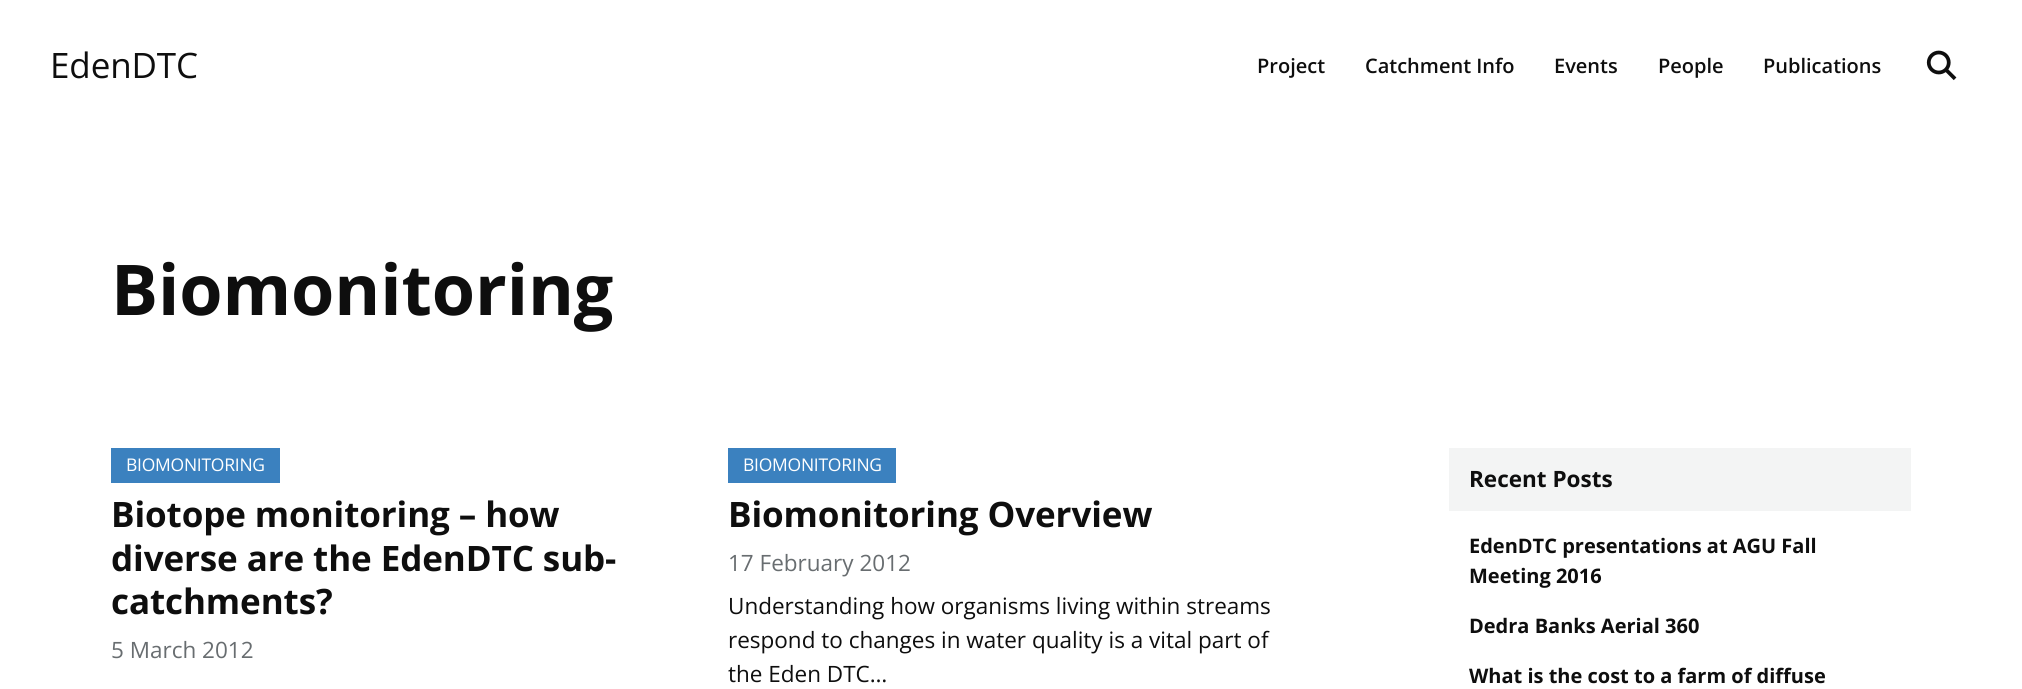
#include <cairo.h>
#include <math.h>
#include <stddef.h>

static cairo_t *ctx;

static void use_color(int r, int g, int b) {
    cairo_set_source_rgb(ctx, r / 255.0, g / 255.0, b / 255.0);
}

static void spaced_text(double x, double y, const char *s, double letter, double word) {
    cairo_move_to(ctx, x, y);
    while (*s) {
        char ch[5] = {0};
        int n = 0;
        do ch[n++] = *s++; while ((*s & 0xC0) == 0x80);
        cairo_show_text(ctx, ch);
        cairo_rel_move_to(ctx, letter + word * (*ch == ' '), 0);
    }
}

static void picture(const char *path, double x, double y, double w, double h) {
    cairo_surface_t *image = cairo_image_surface_create_from_png(path);
    cairo_save(ctx);
    cairo_set_source_surface(ctx, image, x, y);
    cairo_rectangle(ctx, x, y, w, h);
    cairo_fill(ctx);
    cairo_restore(ctx);
    cairo_surface_destroy(image);
}

int main(void) {
    cairo_surface_t *surface = cairo_image_surface_create(CAIRO_FORMAT_RGB24, 2022, 689);
    ctx = cairo_create(surface);
    cairo_font_options_t *options = cairo_font_options_create();
    cairo_font_options_set_hint_metrics(options, CAIRO_HINT_METRICS_OFF);
    cairo_font_options_set_hint_style(options, CAIRO_HINT_STYLE_NONE);
    cairo_set_font_options(ctx, options);
    cairo_set_miter_limit(ctx, 4);
    use_color(255, 255, 255);
    cairo_paint(ctx);
    cairo_select_font_face(ctx, "Open Sans", CAIRO_FONT_SLANT_NORMAL, CAIRO_FONT_WEIGHT_NORMAL);
    cairo_set_font_size(ctx, 35);
    use_color(14, 14, 14);
    spaced_text(50, 78, "EdenDTC", -0.1, 0);
    cairo_select_font_face(ctx, "Open Sans SemiBold", CAIRO_FONT_SLANT_NORMAL, CAIRO_FONT_WEIGHT_NORMAL);
    cairo_set_font_size(ctx, 20);
    cairo_move_to(ctx, 1257, 73);
    cairo_show_text(ctx, "Project");
    cairo_move_to(ctx, 1365, 73);
    cairo_show_text(ctx, "Catchment Info");
    cairo_move_to(ctx, 1554, 73);
    cairo_show_text(ctx, "Events");
    cairo_move_to(ctx, 1658, 73);
    cairo_show_text(ctx, "People");
    cairo_move_to(ctx, 1763, 73);
    cairo_show_text(ctx, "Publications");
    picture("img1.png", 1926, 50, 31, 31);
    cairo_select_font_face(ctx, "Open Sans", CAIRO_FONT_SLANT_NORMAL, CAIRO_FONT_WEIGHT_BOLD);
    cairo_set_font_size(ctx, 70);
    spaced_text(111, 315, "Biomonitoring", -0.1, 0);
    use_color(59, 129, 191);
    cairo_rectangle(ctx, 111, 448, 169, 35);
    cairo_fill(ctx);
    cairo_select_font_face(ctx, "Open Sans", CAIRO_FONT_SLANT_NORMAL, CAIRO_FONT_WEIGHT_NORMAL);
    cairo_set_font_size(ctx, 17.5);
    use_color(255, 255, 255);
    spaced_text(126, 471, "BIOMONITORING", -0.25, 0);
    cairo_select_font_face(ctx, "Open Sans", CAIRO_FONT_SLANT_NORMAL, CAIRO_FONT_WEIGHT_BOLD);
    cairo_set_font_size(ctx, 35);
    use_color(14, 14, 14);
    spaced_text(111, 527, "Biotope monitoring – how", -0.1, 0);
    spaced_text(111, 571, "diverse are the EdenDTC sub-", -0.1, 0);
    spaced_text(111, 614, "catchments?", -0.1, 0);
    cairo_select_font_face(ctx, "Open Sans", CAIRO_FONT_SLANT_NORMAL, CAIRO_FONT_WEIGHT_NORMAL);
    cairo_set_font_size(ctx, 22.5);
    use_color(104, 109, 112);
    cairo_move_to(ctx, 111, 658);
    cairo_show_text(ctx, "5 March 2012");
    use_color(59, 129, 191);
    cairo_rectangle(ctx, 728, 448, 168, 35);
    cairo_fill(ctx);
    cairo_set_font_size(ctx, 17.5);
    use_color(255, 255, 255);
    spaced_text(743, 471, "BIOMONITORING", -0.25, 0);
    cairo_select_font_face(ctx, "Open Sans", CAIRO_FONT_SLANT_NORMAL, CAIRO_FONT_WEIGHT_BOLD);
    cairo_set_font_size(ctx, 35);
    use_color(14, 14, 14);
    spaced_text(728, 527, "Biomonitoring Overview", -0.1, 0);
    cairo_select_font_face(ctx, "Open Sans", CAIRO_FONT_SLANT_NORMAL, CAIRO_FONT_WEIGHT_NORMAL);
    cairo_set_font_size(ctx, 22.5);
    use_color(104, 109, 112);
    cairo_move_to(ctx, 728, 571);
    cairo_show_text(ctx, "17 February 2012");
    use_color(14, 14, 14);
    cairo_move_to(ctx, 728, 614);
    cairo_show_text(ctx, "Understanding how organisms living within streams");
    cairo_move_to(ctx, 728, 648);
    cairo_show_text(ctx, "respond to changes in water quality is a vital part of");
    cairo_move_to(ctx, 728, 682);
    cairo_show_text(ctx, "the Eden DTC…");
    use_color(243, 244, 244);
    cairo_rectangle(ctx, 1449, 448, 462, 63);
    cairo_fill(ctx);
    cairo_select_font_face(ctx, "Open Sans", CAIRO_FONT_SLANT_NORMAL, CAIRO_FONT_WEIGHT_BOLD);
    use_color(14, 14, 14);
    cairo_move_to(ctx, 1469, 487);
    cairo_show_text(ctx, "Recent Posts");
    cairo_set_font_size(ctx, 20);
    cairo_move_to(ctx, 1469, 553);
    cairo_show_text(ctx, "EdenDTC presentations at AGU Fall");
    cairo_move_to(ctx, 1469, 583);
    cairo_show_text(ctx, "Meeting 2016");
    cairo_move_to(ctx, 1469, 633);
    cairo_show_text(ctx, "Dedra Banks Aerial 360");
    cairo_move_to(ctx, 1469, 683);
    cairo_show_text(ctx, "What is the cost to a farm of diffuse");
    cairo_surface_write_to_png(surface, "result.png");
    cairo_font_options_destroy(options);
    cairo_destroy(ctx);
    cairo_surface_destroy(surface);
    return 0;
}
